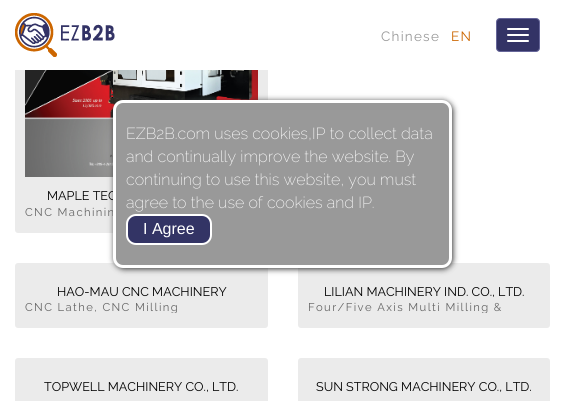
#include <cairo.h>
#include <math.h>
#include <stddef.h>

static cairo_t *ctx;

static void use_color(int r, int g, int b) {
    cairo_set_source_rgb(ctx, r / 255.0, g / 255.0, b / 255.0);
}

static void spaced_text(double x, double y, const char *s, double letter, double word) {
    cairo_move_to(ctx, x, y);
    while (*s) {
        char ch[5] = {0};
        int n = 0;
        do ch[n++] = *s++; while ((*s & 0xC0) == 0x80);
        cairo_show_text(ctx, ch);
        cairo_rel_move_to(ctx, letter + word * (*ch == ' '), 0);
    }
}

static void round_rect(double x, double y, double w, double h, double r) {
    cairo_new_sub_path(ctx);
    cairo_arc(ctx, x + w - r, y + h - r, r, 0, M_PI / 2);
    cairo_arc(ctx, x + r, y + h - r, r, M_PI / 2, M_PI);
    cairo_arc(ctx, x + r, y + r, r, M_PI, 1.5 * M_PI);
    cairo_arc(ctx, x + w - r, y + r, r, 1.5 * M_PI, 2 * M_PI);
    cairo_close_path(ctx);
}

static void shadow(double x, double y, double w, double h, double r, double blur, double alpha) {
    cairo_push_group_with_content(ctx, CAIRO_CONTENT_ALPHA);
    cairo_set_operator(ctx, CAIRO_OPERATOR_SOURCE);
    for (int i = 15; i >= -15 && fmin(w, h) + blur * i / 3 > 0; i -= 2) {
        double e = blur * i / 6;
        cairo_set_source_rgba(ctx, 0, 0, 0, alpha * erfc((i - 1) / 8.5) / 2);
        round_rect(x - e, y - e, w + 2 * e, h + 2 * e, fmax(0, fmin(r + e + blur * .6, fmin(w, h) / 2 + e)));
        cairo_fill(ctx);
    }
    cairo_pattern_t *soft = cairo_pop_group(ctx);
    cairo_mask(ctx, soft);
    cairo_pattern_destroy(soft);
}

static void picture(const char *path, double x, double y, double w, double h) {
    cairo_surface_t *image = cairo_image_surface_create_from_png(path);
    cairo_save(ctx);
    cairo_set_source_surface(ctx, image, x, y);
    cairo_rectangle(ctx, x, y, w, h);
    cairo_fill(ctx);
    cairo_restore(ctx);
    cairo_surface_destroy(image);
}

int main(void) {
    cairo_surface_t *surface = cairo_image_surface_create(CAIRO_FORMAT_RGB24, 565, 401);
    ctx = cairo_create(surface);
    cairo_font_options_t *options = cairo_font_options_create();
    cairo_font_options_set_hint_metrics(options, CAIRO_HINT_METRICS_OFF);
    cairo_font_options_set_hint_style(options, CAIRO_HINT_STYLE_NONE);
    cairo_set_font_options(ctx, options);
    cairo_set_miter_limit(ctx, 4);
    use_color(255, 255, 255);
    cairo_paint(ctx);
    use_color(235, 235, 235);
    round_rect(15, -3, 253, 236, 3);
    cairo_fill(ctx);
    use_color(255, 255, 255);
    cairo_rectangle(ctx, 15, 0, 253, 70);
    cairo_fill(ctx);
    picture("img1.png", 15, 13, 100, 44);
    cairo_select_font_face(ctx, "Raleway", CAIRO_FONT_SLANT_NORMAL, CAIRO_FONT_WEIGHT_NORMAL);
    cairo_set_font_size(ctx, 13.5);
    use_color(153, 153, 153);
    spaced_text(381, 41, "Chinese", 1.25, 0);
    use_color(204, 102, 0);
    spaced_text(451, 41, "EN", 1.25, 0);
    use_color(51, 51, 102);
    round_rect(496.5, 18.5, 43, 33, 3.5);
    cairo_fill_preserve(ctx);
    use_color(102, 102, 153);
    cairo_set_line_width(ctx, 1);
    cairo_stroke(ctx);
    use_color(255, 255, 255);
    round_rect(507, 28, 22, 2, 1);
    cairo_fill(ctx);
    round_rect(507, 34, 22, 2, 1);
    cairo_fill(ctx);
    round_rect(507, 40, 22, 2, 1);
    cairo_fill(ctx);
    picture("img2.png", 25, 70, 233, 107);
    use_color(235, 235, 235);
    round_rect(15, 263, 253, 65, 3);
    cairo_fill(ctx);
    round_rect(298, 263, 252, 65, 3);
    cairo_fill(ctx);
    use_color(51, 51, 51);
    shadow(114, 101, 339, 168, 10, 3, 1);
    cairo_set_font_size(ctx, 12.6);
    use_color(0, 0, 0);
    cairo_move_to(ctx, 47, 200);
    cairo_show_text(ctx, "MAPLE TEC");
    cairo_set_font_size(ctx, 11.25);
    use_color(102, 102, 102);
    spaced_text(25, 216, "CNC Machinin", 1.4, 0);
    use_color(153, 153, 153);
    round_rect(114.5, 101.5, 336, 165, 8.5);
    cairo_fill_preserve(ctx);
    use_color(255, 255, 255);
    cairo_set_line_width(ctx, 3);
    cairo_stroke(ctx);
    cairo_select_font_face(ctx, "Raleway ExtraLight", CAIRO_FONT_SLANT_NORMAL, CAIRO_FONT_WEIGHT_NORMAL);
    cairo_set_font_size(ctx, 16);
    cairo_move_to(ctx, 126, 139);
    cairo_show_text(ctx, "EZB2B.com uses cookies,IP to collect data");
    cairo_move_to(ctx, 126, 162);
    cairo_show_text(ctx, "and continually improve the website. By");
    cairo_move_to(ctx, 126, 185);
    cairo_show_text(ctx, "continuing to use this website, you must");
    cairo_move_to(ctx, 126, 208);
    cairo_show_text(ctx, "agree to the use of cookies and IP.");
    use_color(51, 52, 101);
    round_rect(127, 215, 84, 29, 9);
    cairo_fill_preserve(ctx);
    use_color(255, 255, 255);
    cairo_set_line_width(ctx, 2);
    cairo_stroke(ctx);
    cairo_select_font_face(ctx, "Liberation Sans", CAIRO_FONT_SLANT_NORMAL, CAIRO_FONT_WEIGHT_NORMAL);
    cairo_move_to(ctx, 143, 234);
    cairo_show_text(ctx, "I Agree");
    cairo_select_font_face(ctx, "Raleway", CAIRO_FONT_SLANT_NORMAL, CAIRO_FONT_WEIGHT_NORMAL);
    cairo_set_font_size(ctx, 12.6);
    use_color(0, 0, 0);
    cairo_move_to(ctx, 57, 296);
    cairo_show_text(ctx, "HAO-MAU CNC MACHINERY");
    cairo_save(ctx);
    cairo_rectangle(ctx, 25, 299, 255, 14);
    cairo_clip(ctx);
    cairo_set_font_size(ctx, 11.25);
    use_color(102, 102, 102);
    spaced_text(25, 311, "CNC Lathe, CNC Milling", 1.4, 0);
    cairo_restore(ctx);
    cairo_move_to(ctx, 324, 296);
    cairo_show_text(ctx, "LILIAN MACHINERY IND. CO., LTD.");
    cairo_save(ctx);
    cairo_rectangle(ctx, 308, 299, 232, 14);
    cairo_clip(ctx);
    cairo_set_font_size(ctx, 11.25);
    use_color(102, 102, 102);
    spaced_text(308, 311, "Four/Five Axis Multi Milling &", 1.4, 0);
    cairo_restore(ctx);
    use_color(235, 235, 235);
    round_rect(15, 358, 253, 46, 3);
    cairo_fill(ctx);
    use_color(0, 0, 0);
    cairo_move_to(ctx, 44, 391);
    cairo_show_text(ctx, "TOPWELL MACHINERY CO., LTD.");
    use_color(235, 235, 235);
    round_rect(298, 358, 252, 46, 3);
    cairo_fill(ctx);
    use_color(0, 0, 0);
    cairo_move_to(ctx, 316, 391);
    cairo_show_text(ctx, "SUN STRONG MACHINERY CO., LTD.");
    cairo_surface_write_to_png(surface, "result.png");
    cairo_font_options_destroy(options);
    cairo_destroy(ctx);
    cairo_surface_destroy(surface);
    return 0;
}
